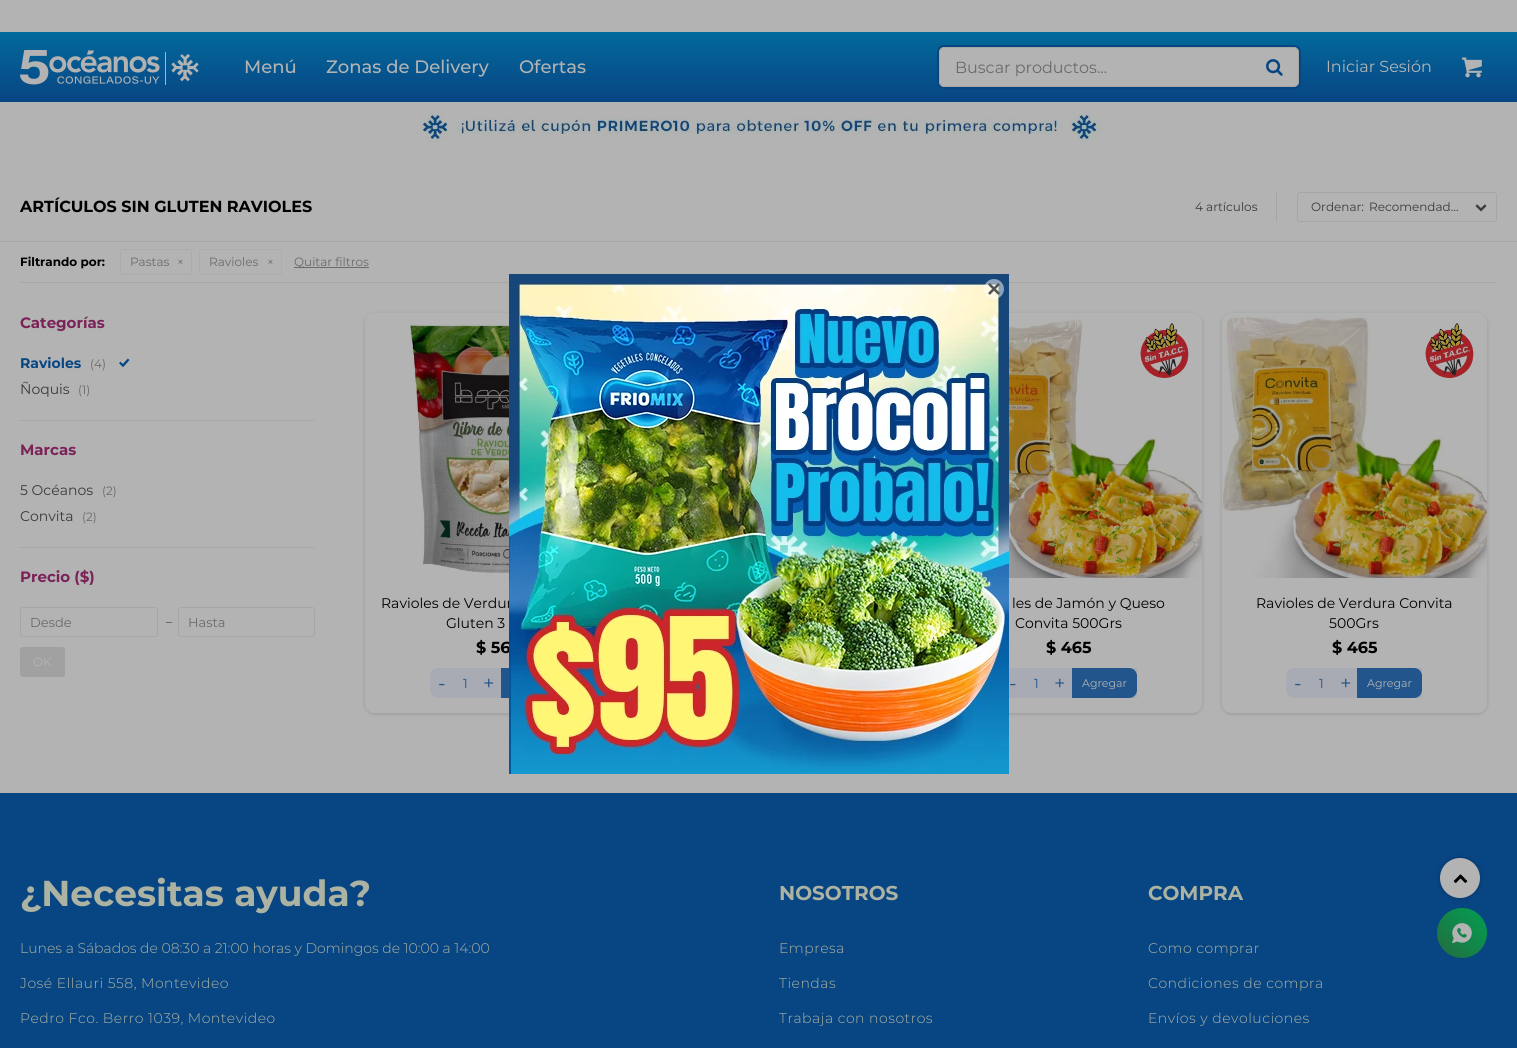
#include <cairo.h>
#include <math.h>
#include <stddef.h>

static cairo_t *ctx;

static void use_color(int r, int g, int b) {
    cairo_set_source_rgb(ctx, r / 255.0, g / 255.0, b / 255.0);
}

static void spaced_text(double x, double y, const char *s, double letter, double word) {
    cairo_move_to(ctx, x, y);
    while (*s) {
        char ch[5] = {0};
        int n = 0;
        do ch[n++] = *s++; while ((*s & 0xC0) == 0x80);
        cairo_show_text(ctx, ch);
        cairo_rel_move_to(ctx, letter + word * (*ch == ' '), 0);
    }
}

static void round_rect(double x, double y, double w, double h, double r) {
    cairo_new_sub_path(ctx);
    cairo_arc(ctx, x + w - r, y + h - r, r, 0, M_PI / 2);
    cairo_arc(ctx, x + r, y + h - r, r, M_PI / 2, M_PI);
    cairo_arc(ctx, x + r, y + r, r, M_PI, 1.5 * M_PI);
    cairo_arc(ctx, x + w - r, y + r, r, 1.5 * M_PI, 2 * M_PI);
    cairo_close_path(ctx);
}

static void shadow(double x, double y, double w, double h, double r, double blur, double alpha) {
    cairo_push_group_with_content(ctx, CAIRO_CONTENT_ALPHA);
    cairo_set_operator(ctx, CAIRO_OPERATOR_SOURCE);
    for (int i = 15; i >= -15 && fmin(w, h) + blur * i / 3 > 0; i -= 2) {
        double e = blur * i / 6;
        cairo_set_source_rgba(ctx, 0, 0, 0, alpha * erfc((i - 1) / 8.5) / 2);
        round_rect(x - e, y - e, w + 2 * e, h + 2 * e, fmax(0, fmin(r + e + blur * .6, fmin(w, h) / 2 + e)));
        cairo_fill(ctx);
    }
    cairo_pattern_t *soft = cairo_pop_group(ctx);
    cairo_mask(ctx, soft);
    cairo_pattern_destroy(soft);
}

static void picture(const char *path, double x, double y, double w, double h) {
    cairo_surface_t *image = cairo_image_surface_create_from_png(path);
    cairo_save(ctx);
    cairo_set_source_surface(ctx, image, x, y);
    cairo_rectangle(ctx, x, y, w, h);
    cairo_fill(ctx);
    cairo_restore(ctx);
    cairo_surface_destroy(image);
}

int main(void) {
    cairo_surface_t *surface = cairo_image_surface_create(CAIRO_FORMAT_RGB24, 1517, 1048);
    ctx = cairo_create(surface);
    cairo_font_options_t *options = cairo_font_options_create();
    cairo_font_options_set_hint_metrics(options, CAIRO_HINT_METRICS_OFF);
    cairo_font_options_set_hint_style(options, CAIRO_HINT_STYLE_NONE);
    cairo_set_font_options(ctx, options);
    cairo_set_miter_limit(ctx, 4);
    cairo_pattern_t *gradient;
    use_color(179, 179, 179);
    cairo_paint(ctx);
    gradient = cairo_pattern_create_linear(759, 102, 759, 0);
    cairo_pattern_add_color_stop_rgba(gradient, 0, 0.031, 0.271, 0.514, 1);
    cairo_pattern_add_color_stop_rgba(gradient, 1, 0, 0.478, 0.655, 1);
    cairo_set_source(ctx, gradient);
    cairo_pattern_destroy(gradient);
    cairo_rectangle(ctx, 0, 32, 1517, 70);
    cairo_fill(ctx);
    picture("img1.png", 20, 50, 179, 35);
    cairo_select_font_face(ctx, "Montserrat Medium", CAIRO_FONT_SLANT_NORMAL, CAIRO_FONT_WEIGHT_NORMAL);
    cairo_set_font_size(ctx, 18);
    use_color(179, 179, 179);
    cairo_move_to(ctx, 244, 73);
    cairo_show_text(ctx, "Menú");
    cairo_move_to(ctx, 326, 73);
    cairo_show_text(ctx, "Zonas de Delivery");
    cairo_move_to(ctx, 519, 73);
    cairo_show_text(ctx, "Ofertas");
    round_rect(938, 46, 362, 42, 6);
    use_color(8, 69, 131);
    cairo_stroke(ctx);
    use_color(179, 179, 179);
    round_rect(939.5, 47.5, 359, 39, 4.5);
    cairo_fill_preserve(ctx);
    use_color(166, 166, 166);
    cairo_set_line_width(ctx, 1);
    cairo_stroke(ctx);
    cairo_select_font_face(ctx, "Montserrat", CAIRO_FONT_SLANT_NORMAL, CAIRO_FONT_WEIGHT_NORMAL);
    cairo_set_font_size(ctx, 16);
    use_color(107, 107, 107);
    cairo_move_to(ctx, 955, 73);
    cairo_show_text(ctx, "Buscar productos...");
    picture("img2.png", 1266, 59, 17, 17);
    use_color(179, 179, 179);
    cairo_move_to(ctx, 1326, 72);
    cairo_show_text(ctx, "Iniciar Sesión");
    picture("img3.png", 1462, 57, 20, 21);
    picture("img4.png", 422, 110, 680, 32);
    cairo_select_font_face(ctx, "Montserrat", CAIRO_FONT_SLANT_NORMAL, CAIRO_FONT_WEIGHT_BOLD);
    use_color(0, 0, 0);
    cairo_move_to(ctx, 20, 212);
    cairo_show_text(ctx, "ARTÍCULOS SIN GLUTEN RAVIOLES");
    cairo_select_font_face(ctx, "Montserrat", CAIRO_FONT_SLANT_NORMAL, CAIRO_FONT_WEIGHT_NORMAL);
    cairo_set_font_size(ctx, 12);
    use_color(59, 59, 59);
    cairo_move_to(ctx, 1195, 211);
    cairo_show_text(ctx, "4 artículos");
    use_color(166, 166, 166);
    cairo_rectangle(ctx, 1276, 192, 1, 30);
    cairo_fill(ctx);
    picture("img5.png", 1475, 204, 12, 8);
    round_rect(1297.5, 192.5, 199, 29, 2.5);
    cairo_stroke(ctx);
    use_color(59, 59, 59);
    cairo_move_to(ctx, 1311, 211);
    cairo_show_text(ctx, "Ordenar:");
    cairo_move_to(ctx, 1369, 211);
    cairo_show_text(ctx, "Recomendad…");
    use_color(166, 166, 166);
    cairo_rectangle(ctx, 0, 241, 1517, 1);
    cairo_fill(ctx);
    cairo_rectangle(ctx, 20, 282, 1477, 1);
    cairo_fill(ctx);
    cairo_select_font_face(ctx, "Montserrat", CAIRO_FONT_SLANT_NORMAL, CAIRO_FONT_WEIGHT_BOLD);
    use_color(0, 0, 0);
    cairo_move_to(ctx, 20, 266);
    cairo_show_text(ctx, "Filtrando por:");
    round_rect(120.5, 249.5, 71, 25, 2.5);
    use_color(172, 172, 172);
    cairo_stroke(ctx);
    cairo_select_font_face(ctx, "Montserrat", CAIRO_FONT_SLANT_NORMAL, CAIRO_FONT_WEIGHT_NORMAL);
    use_color(107, 107, 107);
    cairo_move_to(ctx, 130, 266);
    cairo_show_text(ctx, "Pastas");
    cairo_move_to(ctx, 177, 266);
    cairo_show_text(ctx, "×");
    round_rect(199.5, 249.5, 82, 25, 2.5);
    use_color(172, 172, 172);
    cairo_stroke(ctx);
    use_color(107, 107, 107);
    cairo_move_to(ctx, 209, 266);
    cairo_show_text(ctx, "Ravioles");
    cairo_move_to(ctx, 267, 266);
    cairo_show_text(ctx, "×");
    cairo_rectangle(ctx, 294, 267, 75, 1);
    cairo_fill(ctx);
    cairo_move_to(ctx, 294, 266);
    cairo_show_text(ctx, "Quitar filtros");
    cairo_select_font_face(ctx, "Montserrat", CAIRO_FONT_SLANT_NORMAL, CAIRO_FONT_WEIGHT_BOLD);
    cairo_set_font_size(ctx, 15);
    use_color(123, 34, 88);
    cairo_move_to(ctx, 20, 328);
    cairo_show_text(ctx, "Categorías");
    cairo_set_font_size(ctx, 14);
    use_color(8, 69, 131);
    cairo_move_to(ctx, 20, 368);
    cairo_show_text(ctx, "Ravioles");
    cairo_select_font_face(ctx, "Montserrat", CAIRO_FONT_SLANT_NORMAL, CAIRO_FONT_WEIGHT_NORMAL);
    cairo_set_font_size(ctx, 12);
    use_color(107, 107, 107);
    cairo_move_to(ctx, 90, 368);
    cairo_show_text(ctx, "(4)");
    picture("img6.png", 119, 358, 11, 10);
    cairo_set_font_size(ctx, 14);
    use_color(59, 59, 59);
    cairo_move_to(ctx, 20, 394);
    cairo_show_text(ctx, "Ñoquis");
    cairo_set_font_size(ctx, 12);
    use_color(107, 107, 107);
    cairo_move_to(ctx, 78, 394);
    cairo_show_text(ctx, "(1)");
    use_color(166, 166, 166);
    cairo_rectangle(ctx, 20, 420, 295, 1);
    cairo_fill(ctx);
    cairo_select_font_face(ctx, "Montserrat", CAIRO_FONT_SLANT_NORMAL, CAIRO_FONT_WEIGHT_BOLD);
    cairo_set_font_size(ctx, 15);
    use_color(123, 34, 88);
    cairo_move_to(ctx, 20, 455);
    cairo_show_text(ctx, "Marcas");
    cairo_select_font_face(ctx, "Montserrat", CAIRO_FONT_SLANT_NORMAL, CAIRO_FONT_WEIGHT_NORMAL);
    cairo_set_font_size(ctx, 14);
    use_color(59, 59, 59);
    cairo_move_to(ctx, 20, 495);
    cairo_show_text(ctx, "5 Océanos");
    cairo_set_font_size(ctx, 12);
    use_color(107, 107, 107);
    cairo_move_to(ctx, 102, 495);
    cairo_show_text(ctx, "(2)");
    cairo_set_font_size(ctx, 14);
    use_color(59, 59, 59);
    cairo_move_to(ctx, 20, 521);
    cairo_show_text(ctx, "Convita");
    cairo_set_font_size(ctx, 12);
    use_color(107, 107, 107);
    cairo_move_to(ctx, 82, 521);
    cairo_show_text(ctx, "(2)");
    use_color(166, 166, 166);
    cairo_rectangle(ctx, 20, 547, 295, 1);
    cairo_fill(ctx);
    cairo_select_font_face(ctx, "Montserrat", CAIRO_FONT_SLANT_NORMAL, CAIRO_FONT_WEIGHT_BOLD);
    cairo_set_font_size(ctx, 15);
    use_color(123, 34, 88);
    cairo_move_to(ctx, 20, 582);
    cairo_show_text(ctx, "Precio ($)");
    round_rect(20.5, 607.5, 137, 29, 2.5);
    use_color(166, 166, 166);
    cairo_stroke(ctx);
    cairo_select_font_face(ctx, "Montserrat", CAIRO_FONT_SLANT_NORMAL, CAIRO_FONT_WEIGHT_NORMAL);
    cairo_set_font_size(ctx, 13);
    use_color(107, 107, 107);
    cairo_move_to(ctx, 30, 627);
    cairo_show_text(ctx, "Desde");
    cairo_rectangle(ctx, 166, 622, 6, 1);
    cairo_fill(ctx);
    round_rect(178.5, 607.5, 136, 29, 2.5);
    use_color(166, 166, 166);
    cairo_stroke(ctx);
    use_color(107, 107, 107);
    cairo_move_to(ctx, 188, 627);
    cairo_show_text(ctx, "Hasta");
    use_color(161, 161, 161);
    round_rect(20, 647, 45, 30, 3);
    cairo_fill(ctx);
    cairo_set_font_size(ctx, 12);
    use_color(179, 179, 179);
    cairo_move_to(ctx, 33, 666);
    cairo_show_text(ctx, "OK");
    picture("img7.png", 409, 324, 100, 249);
    use_color(168, 171, 179);
    cairo_new_path(ctx);
    cairo_move_to(ctx, 438, 668);
    cairo_line_to(ctx, 566, 668);
    cairo_line_to(ctx, 566, 698);
    cairo_line_to(ctx, 438, 698);
    cairo_curve_to(ctx, 433.5, 698, 430, 694.5, 430, 690);
    cairo_line_to(ctx, 430, 676);
    cairo_curve_to(ctx, 430, 671.5, 433.5, 668, 438, 668);
    cairo_close_path(ctx);
    cairo_fill(ctx);
    use_color(34, 85, 139);
    cairo_rectangle(ctx, 501, 668, 8, 30);
    cairo_fill(ctx);
    cairo_save(ctx);
    cairo_set_fill_rule(ctx, CAIRO_FILL_RULE_EVEN_ODD);
    cairo_new_path(ctx);
    cairo_move_to(ctx, 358, 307);
    cairo_line_to(ctx, 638, 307);
    cairo_line_to(ctx, 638, 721);
    cairo_line_to(ctx, 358, 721);
    cairo_close_path(ctx);
    cairo_move_to(ctx, 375, 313);
    cairo_line_to(ctx, 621, 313);
    cairo_curve_to(ctx, 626.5, 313, 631, 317.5, 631, 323);
    cairo_line_to(ctx, 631, 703);
    cairo_curve_to(ctx, 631, 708.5, 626.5, 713, 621, 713);
    cairo_line_to(ctx, 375, 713);
    cairo_curve_to(ctx, 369.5, 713, 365, 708.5, 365, 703);
    cairo_line_to(ctx, 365, 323);
    cairo_curve_to(ctx, 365, 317.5, 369.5, 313, 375, 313);
    cairo_close_path(ctx);
    cairo_clip(ctx);
    use_color(29, 35, 53);
    shadow(365, 314, 266, 400, 10, 2, 0.2);
    cairo_restore(ctx);
    cairo_set_font_size(ctx, 14);
    use_color(0, 0, 0);
    cairo_move_to(ctx, 381, 608);
    cairo_show_text(ctx, "Ravioles de Verdur");
    cairo_move_to(ctx, 446, 628);
    cairo_show_text(ctx, "Gluten 3");
    cairo_select_font_face(ctx, "Montserrat", CAIRO_FONT_SLANT_NORMAL, CAIRO_FONT_WEIGHT_BOLD);
    cairo_set_font_size(ctx, 16);
    cairo_move_to(ctx, 476, 653);
    cairo_show_text(ctx, "$ 56");
    cairo_select_font_face(ctx, "Montserrat", CAIRO_FONT_SLANT_NORMAL, CAIRO_FONT_WEIGHT_NORMAL);
    cairo_set_font_size(ctx, 20);
    use_color(34, 85, 139);
    cairo_move_to(ctx, 438, 690);
    cairo_show_text(ctx, "-");
    cairo_set_font_size(ctx, 13);
    cairo_move_to(ctx, 463, 688);
    cairo_show_text(ctx, "1");
    cairo_set_font_size(ctx, 20);
    cairo_move_to(ctx, 483, 690);
    cairo_show_text(ctx, "+");
    picture("img8.png", 1009, 317, 193, 261);
    picture("img9.png", 1140, 323, 49, 55);
    use_color(168, 171, 179);
    cairo_rectangle(ctx, 1009, 668, 128, 30);
    cairo_fill(ctx);
    use_color(34, 85, 139);
    cairo_new_path(ctx);
    cairo_move_to(ctx, 1072, 668);
    cairo_line_to(ctx, 1129, 668);
    cairo_curve_to(ctx, 1133.5, 668, 1137, 671.5, 1137, 676);
    cairo_line_to(ctx, 1137, 690);
    cairo_curve_to(ctx, 1137, 694.5, 1133.5, 698, 1129, 698);
    cairo_line_to(ctx, 1072, 698);
    cairo_close_path(ctx);
    cairo_fill(ctx);
    cairo_save(ctx);
    cairo_set_fill_rule(ctx, CAIRO_FILL_RULE_EVEN_ODD);
    cairo_new_path(ctx);
    cairo_move_to(ctx, 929, 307);
    cairo_line_to(ctx, 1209, 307);
    cairo_line_to(ctx, 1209, 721);
    cairo_line_to(ctx, 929, 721);
    cairo_close_path(ctx);
    cairo_move_to(ctx, 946, 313);
    cairo_line_to(ctx, 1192, 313);
    cairo_curve_to(ctx, 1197.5, 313, 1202, 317.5, 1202, 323);
    cairo_line_to(ctx, 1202, 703);
    cairo_curve_to(ctx, 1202, 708.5, 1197.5, 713, 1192, 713);
    cairo_line_to(ctx, 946, 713);
    cairo_curve_to(ctx, 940.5, 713, 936, 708.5, 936, 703);
    cairo_line_to(ctx, 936, 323);
    cairo_curve_to(ctx, 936, 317.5, 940.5, 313, 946, 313);
    cairo_close_path(ctx);
    cairo_clip(ctx);
    use_color(29, 35, 53);
    shadow(936, 314, 266, 400, 10, 2, 0.2);
    cairo_restore(ctx);
    cairo_set_font_size(ctx, 14);
    use_color(0, 0, 0);
    cairo_move_to(ctx, 1012, 608);
    cairo_show_text(ctx, "les de Jamón y Queso");
    cairo_move_to(ctx, 1015, 628);
    cairo_show_text(ctx, "Convita 500Grs");
    cairo_select_font_face(ctx, "Montserrat", CAIRO_FONT_SLANT_NORMAL, CAIRO_FONT_WEIGHT_BOLD);
    cairo_set_font_size(ctx, 16);
    cairo_move_to(ctx, 1046, 653);
    cairo_show_text(ctx, "$ 465");
    cairo_select_font_face(ctx, "Montserrat", CAIRO_FONT_SLANT_NORMAL, CAIRO_FONT_WEIGHT_NORMAL);
    cairo_set_font_size(ctx, 20);
    use_color(34, 85, 139);
    cairo_move_to(ctx, 1009, 690);
    cairo_show_text(ctx, "-");
    cairo_set_font_size(ctx, 13);
    cairo_move_to(ctx, 1034, 688);
    cairo_show_text(ctx, "1");
    cairo_set_font_size(ctx, 20);
    cairo_move_to(ctx, 1054, 690);
    cairo_show_text(ctx, "+");
    cairo_set_font_size(ctx, 11);
    use_color(179, 179, 179);
    cairo_move_to(ctx, 1082, 687);
    cairo_show_text(ctx, "Agregar");
    picture("img10.png", 1222, 317, 265, 261);
    picture("img11.png", 1425, 323, 49, 55);
    use_color(168, 171, 179);
    cairo_new_path(ctx);
    cairo_move_to(ctx, 1294, 668);
    cairo_line_to(ctx, 1422, 668);
    cairo_line_to(ctx, 1422, 698);
    cairo_line_to(ctx, 1294, 698);
    cairo_curve_to(ctx, 1289.5, 698, 1286, 694.5, 1286, 690);
    cairo_line_to(ctx, 1286, 676);
    cairo_curve_to(ctx, 1286, 671.5, 1289.5, 668, 1294, 668);
    cairo_close_path(ctx);
    cairo_fill(ctx);
    use_color(34, 85, 139);
    cairo_new_path(ctx);
    cairo_move_to(ctx, 1357, 668);
    cairo_line_to(ctx, 1414, 668);
    cairo_curve_to(ctx, 1418.5, 668, 1422, 671.5, 1422, 676);
    cairo_line_to(ctx, 1422, 690);
    cairo_curve_to(ctx, 1422, 694.5, 1418.5, 698, 1414, 698);
    cairo_line_to(ctx, 1357, 698);
    cairo_close_path(ctx);
    cairo_fill(ctx);
    cairo_save(ctx);
    cairo_set_fill_rule(ctx, CAIRO_FILL_RULE_EVEN_ODD);
    cairo_new_path(ctx);
    cairo_move_to(ctx, 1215, 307);
    cairo_line_to(ctx, 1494, 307);
    cairo_line_to(ctx, 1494, 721);
    cairo_line_to(ctx, 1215, 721);
    cairo_close_path(ctx);
    cairo_move_to(ctx, 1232, 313);
    cairo_line_to(ctx, 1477, 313);
    cairo_curve_to(ctx, 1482.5, 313, 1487, 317.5, 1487, 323);
    cairo_line_to(ctx, 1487, 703);
    cairo_curve_to(ctx, 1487, 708.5, 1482.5, 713, 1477, 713);
    cairo_line_to(ctx, 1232, 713);
    cairo_curve_to(ctx, 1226.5, 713, 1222, 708.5, 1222, 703);
    cairo_line_to(ctx, 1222, 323);
    cairo_curve_to(ctx, 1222, 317.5, 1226.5, 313, 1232, 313);
    cairo_close_path(ctx);
    cairo_clip(ctx);
    use_color(29, 35, 53);
    shadow(1222, 314, 265, 400, 10, 2, 0.2);
    cairo_restore(ctx);
    cairo_set_font_size(ctx, 14);
    use_color(0, 0, 0);
    cairo_move_to(ctx, 1256, 608);
    cairo_show_text(ctx, "Ravioles de Verdura Convita");
    cairo_move_to(ctx, 1329, 628);
    cairo_show_text(ctx, "500Grs");
    cairo_select_font_face(ctx, "Montserrat", CAIRO_FONT_SLANT_NORMAL, CAIRO_FONT_WEIGHT_BOLD);
    cairo_set_font_size(ctx, 16);
    cairo_move_to(ctx, 1332, 653);
    cairo_show_text(ctx, "$ 465");
    cairo_select_font_face(ctx, "Montserrat", CAIRO_FONT_SLANT_NORMAL, CAIRO_FONT_WEIGHT_NORMAL);
    cairo_set_font_size(ctx, 20);
    use_color(34, 85, 139);
    cairo_move_to(ctx, 1294, 690);
    cairo_show_text(ctx, "-");
    cairo_set_font_size(ctx, 13);
    cairo_move_to(ctx, 1319, 688);
    cairo_show_text(ctx, "1");
    cairo_set_font_size(ctx, 20);
    cairo_move_to(ctx, 1340, 690);
    cairo_show_text(ctx, "+");
    cairo_set_font_size(ctx, 11);
    use_color(179, 179, 179);
    cairo_move_to(ctx, 1367, 687);
    cairo_show_text(ctx, "Agregar");
    use_color(8, 69, 131);
    cairo_rectangle(ctx, 0, 793, 1517, 255);
    cairo_fill(ctx);
    use_color(0, 0, 0);
    shadow(1440, 858, 40, 40, 20, 2.5, 0.25);
    use_color(179, 179, 179);
    cairo_arc(ctx, 1460, 878, 20, 0, 2 * M_PI);
    cairo_fill(ctx);
    picture("img12.png", 1453, 874, 15, 9);
    cairo_select_font_face(ctx, "Montserrat", CAIRO_FONT_SLANT_NORMAL, CAIRO_FONT_WEIGHT_BOLD);
    cairo_set_font_size(ctx, 36);
    use_color(172, 179, 162);
    cairo_move_to(ctx, 20, 906);
    cairo_show_text(ctx, "¿Necesitas ayuda?");
    cairo_select_font_face(ctx, "Montserrat Light", CAIRO_FONT_SLANT_NORMAL, CAIRO_FONT_WEIGHT_NORMAL);
    cairo_set_font_size(ctx, 14);
    cairo_move_to(ctx, 20, 953);
    cairo_show_text(ctx, "Lunes a Sábados de 08:30 a 21:00 horas y Domingos de 10:00 a 14:00");
    spaced_text(20, 988, "José Ellauri 558, Montevideo", 0.5, 0);
    spaced_text(20, 1023, "Pedro Fco. Berro 1039, Montevideo", 0.5, 0);
    cairo_select_font_face(ctx, "Montserrat", CAIRO_FONT_SLANT_NORMAL, CAIRO_FONT_WEIGHT_BOLD);
    cairo_set_font_size(ctx, 20);
    cairo_move_to(ctx, 779, 900);
    cairo_show_text(ctx, "NOSOTROS");
    cairo_select_font_face(ctx, "Montserrat Light", CAIRO_FONT_SLANT_NORMAL, CAIRO_FONT_WEIGHT_NORMAL);
    cairo_set_font_size(ctx, 14);
    spaced_text(779, 953, "Empresa", 0.5, 0);
    spaced_text(779, 988, "Tiendas", 0.5, 0);
    spaced_text(779, 1023, "Trabaja con nosotros", 0.5, 0);
    cairo_select_font_face(ctx, "Montserrat", CAIRO_FONT_SLANT_NORMAL, CAIRO_FONT_WEIGHT_BOLD);
    cairo_set_font_size(ctx, 20);
    cairo_move_to(ctx, 1148, 900);
    cairo_show_text(ctx, "COMPRA");
    cairo_select_font_face(ctx, "Montserrat Light", CAIRO_FONT_SLANT_NORMAL, CAIRO_FONT_WEIGHT_NORMAL);
    cairo_set_font_size(ctx, 14);
    spaced_text(1148, 953, "Como comprar", 0.5, 0);
    spaced_text(1148, 988, "Condiciones de compra", 0.5, 0);
    spaced_text(1148, 1023, "Envíos y devoluciones", 0.5, 0);
    picture("img13.png", 509, 274, 500, 500);
    cairo_set_source_rgba(ctx, 1, 1, 1, 0.5);
    cairo_arc(ctx, 994, 289, 10, 0, 2 * M_PI);
    cairo_fill(ctx);
    picture("img14.png", 988, 283, 12, 12);
    gradient = cairo_pattern_create_linear(1437, 958, 1487, 908);
    cairo_pattern_add_color_stop_rgba(gradient, 0, 0.141, 0.42, 0.247, 1);
    cairo_pattern_add_color_stop_rgba(gradient, 1, 0.004, 0.631, 0.322, 1);
    cairo_set_source(ctx, gradient);
    cairo_pattern_destroy(gradient);
    cairo_arc(ctx, 1462, 933, 25, 0, 2 * M_PI);
    cairo_fill(ctx);
    picture("img15.png", 1452, 923, 20, 21);
    cairo_surface_write_to_png(surface, "result.png");
    cairo_font_options_destroy(options);
    cairo_destroy(ctx);
    cairo_surface_destroy(surface);
    return 0;
}
